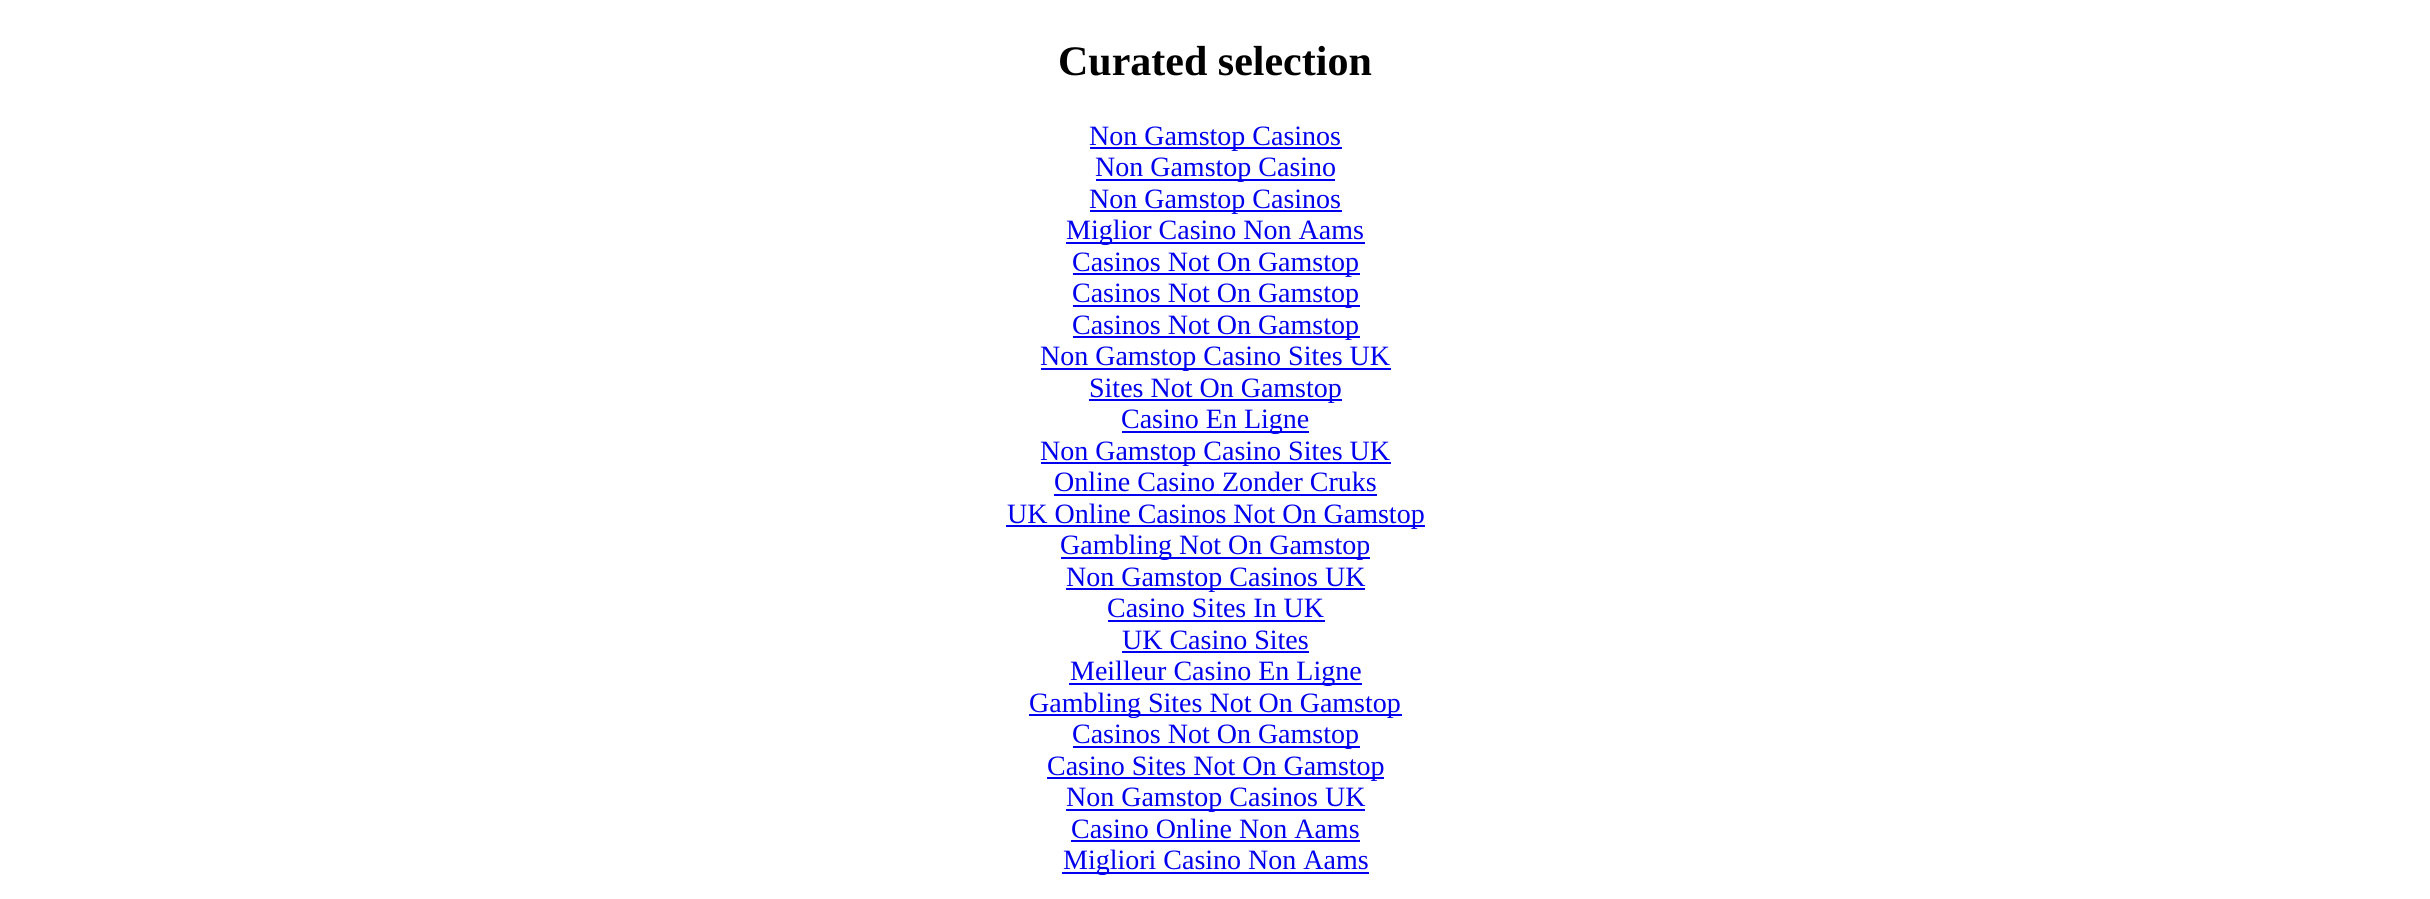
#include <cairo.h>
#include <math.h>
#include <stddef.h>

static cairo_t *ctx;

static void use_color(int r, int g, int b) {
    cairo_set_source_rgb(ctx, r / 255.0, g / 255.0, b / 255.0);
}

int main(void) {
    cairo_surface_t *surface = cairo_image_surface_create(CAIRO_FORMAT_RGB24, 2430, 899);
    ctx = cairo_create(surface);
    cairo_font_options_t *options = cairo_font_options_create();
    cairo_font_options_set_hint_metrics(options, CAIRO_HINT_METRICS_OFF);
    cairo_font_options_set_hint_style(options, CAIRO_HINT_STYLE_NONE);
    cairo_set_font_options(ctx, options);
    cairo_set_miter_limit(ctx, 4);
    use_color(255, 255, 255);
    cairo_paint(ctx);
    cairo_select_font_face(ctx, "Liberation Serif", CAIRO_FONT_SLANT_NORMAL, CAIRO_FONT_WEIGHT_BOLD);
    cairo_set_font_size(ctx, 42);
    use_color(0, 0, 0);
    cairo_move_to(ctx, 1058, 75);
    cairo_show_text(ctx, "Curated selection");
    use_color(0, 0, 238);
    cairo_rectangle(ctx, 1090, 147, 252, 2);
    cairo_fill(ctx);
    cairo_select_font_face(ctx, "Liberation Serif", CAIRO_FONT_SLANT_NORMAL, CAIRO_FONT_WEIGHT_NORMAL);
    cairo_set_font_size(ctx, 28);
    cairo_move_to(ctx, 1089, 145);
    cairo_show_text(ctx, "Non Gamstop Casinos");
    cairo_rectangle(ctx, 1096, 179, 239, 2);
    cairo_fill(ctx);
    cairo_move_to(ctx, 1095, 176);
    cairo_show_text(ctx, "Non Gamstop Casino");
    cairo_rectangle(ctx, 1090, 210, 252, 2);
    cairo_fill(ctx);
    cairo_move_to(ctx, 1089, 208);
    cairo_show_text(ctx, "Non Gamstop Casinos");
    cairo_rectangle(ctx, 1066, 242, 299, 2);
    cairo_fill(ctx);
    cairo_move_to(ctx, 1066, 239);
    cairo_show_text(ctx, "Miglior Casino Non Aams");
    cairo_rectangle(ctx, 1073, 273, 287, 2);
    cairo_fill(ctx);
    cairo_move_to(ctx, 1072, 271);
    cairo_show_text(ctx, "Casinos Not On Gamstop");
    cairo_rectangle(ctx, 1073, 305, 287, 2);
    cairo_fill(ctx);
    cairo_move_to(ctx, 1072, 302);
    cairo_show_text(ctx, "Casinos Not On Gamstop");
    cairo_rectangle(ctx, 1073, 336, 287, 2);
    cairo_fill(ctx);
    cairo_move_to(ctx, 1072, 334);
    cairo_show_text(ctx, "Casinos Not On Gamstop");
    cairo_rectangle(ctx, 1041, 368, 350, 2);
    cairo_fill(ctx);
    cairo_move_to(ctx, 1040, 365);
    cairo_show_text(ctx, "Non Gamstop Casino Sites UK");
    cairo_rectangle(ctx, 1089, 399, 253, 2);
    cairo_fill(ctx);
    cairo_move_to(ctx, 1089, 397);
    cairo_show_text(ctx, "Sites Not On Gamstop");
    cairo_rectangle(ctx, 1122, 431, 187, 2);
    cairo_fill(ctx);
    cairo_move_to(ctx, 1121, 428);
    cairo_show_text(ctx, "Casino En Ligne");
    cairo_rectangle(ctx, 1041, 462, 350, 2);
    cairo_fill(ctx);
    cairo_move_to(ctx, 1040, 460);
    cairo_show_text(ctx, "Non Gamstop Casino Sites UK");
    cairo_move_to(ctx, 1054, 491);
    cairo_show_text(ctx, "Online Casino Zonder Cruks");
    cairo_rectangle(ctx, 1054, 494, 323, 2);
    cairo_fill(ctx);
    cairo_rectangle(ctx, 1006, 525, 419, 2);
    cairo_fill(ctx);
    cairo_move_to(ctx, 1007, 523);
    cairo_show_text(ctx, "UK Online Casinos Not On Gamstop");
    cairo_rectangle(ctx, 1061, 557, 309, 2);
    cairo_fill(ctx);
    cairo_move_to(ctx, 1060, 554);
    cairo_show_text(ctx, "Gambling Not On Gamstop");
    cairo_rectangle(ctx, 1066, 588, 299, 2);
    cairo_fill(ctx);
    cairo_move_to(ctx, 1066, 586);
    cairo_show_text(ctx, "Non Gamstop Casinos UK");
    cairo_move_to(ctx, 1107, 617);
    cairo_show_text(ctx, "Casino Sites In UK");
    cairo_rectangle(ctx, 1108, 620, 217, 2);
    cairo_fill(ctx);
    cairo_move_to(ctx, 1122, 649);
    cairo_show_text(ctx, "UK Casino Sites");
    cairo_rectangle(ctx, 1122, 651, 187, 2);
    cairo_fill(ctx);
    cairo_rectangle(ctx, 1069, 683, 293, 2);
    cairo_fill(ctx);
    cairo_move_to(ctx, 1070, 680);
    cairo_show_text(ctx, "Meilleur Casino En Ligne");
    cairo_rectangle(ctx, 1029, 714, 373, 2);
    cairo_fill(ctx);
    cairo_move_to(ctx, 1029, 712);
    cairo_show_text(ctx, "Gambling Sites Not On Gamstop");
    cairo_rectangle(ctx, 1073, 746, 287, 2);
    cairo_fill(ctx);
    cairo_move_to(ctx, 1072, 743);
    cairo_show_text(ctx, "Casinos Not On Gamstop");
    cairo_rectangle(ctx, 1047, 777, 337, 2);
    cairo_fill(ctx);
    cairo_move_to(ctx, 1047, 775);
    cairo_show_text(ctx, "Casino Sites Not On Gamstop");
    cairo_rectangle(ctx, 1066, 809, 299, 2);
    cairo_fill(ctx);
    cairo_move_to(ctx, 1066, 806);
    cairo_show_text(ctx, "Non Gamstop Casinos UK");
    cairo_move_to(ctx, 1071, 838);
    cairo_show_text(ctx, "Casino Online Non Aams");
    cairo_rectangle(ctx, 1071, 840, 289, 2);
    cairo_fill(ctx);
    cairo_rectangle(ctx, 1062, 872, 307, 2);
    cairo_fill(ctx);
    cairo_move_to(ctx, 1063, 869);
    cairo_show_text(ctx, "Migliori Casino Non Aams");
    cairo_surface_write_to_png(surface, "result.png");
    cairo_font_options_destroy(options);
    cairo_destroy(ctx);
    cairo_surface_destroy(surface);
    return 0;
}
